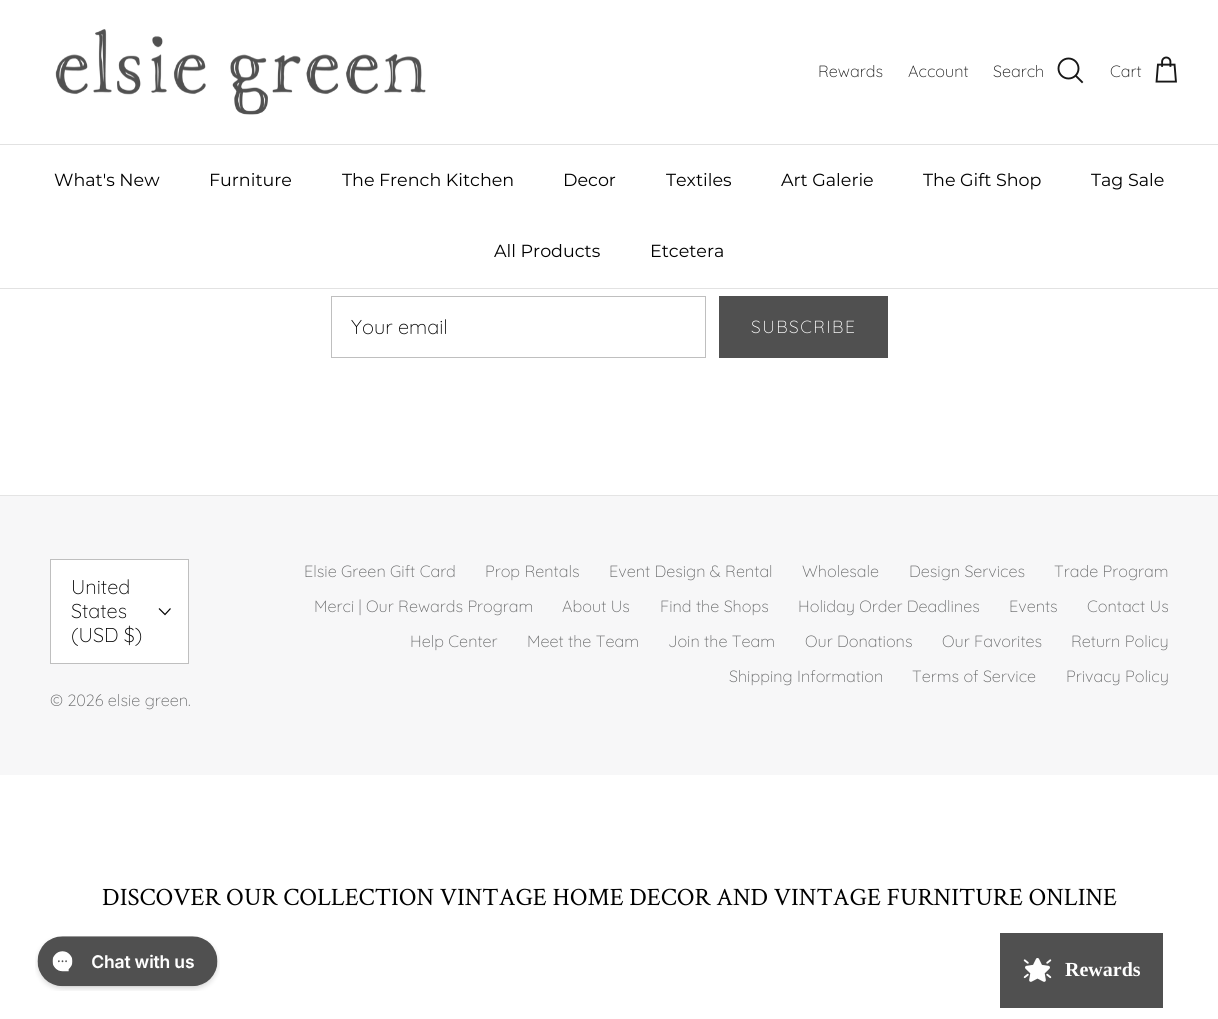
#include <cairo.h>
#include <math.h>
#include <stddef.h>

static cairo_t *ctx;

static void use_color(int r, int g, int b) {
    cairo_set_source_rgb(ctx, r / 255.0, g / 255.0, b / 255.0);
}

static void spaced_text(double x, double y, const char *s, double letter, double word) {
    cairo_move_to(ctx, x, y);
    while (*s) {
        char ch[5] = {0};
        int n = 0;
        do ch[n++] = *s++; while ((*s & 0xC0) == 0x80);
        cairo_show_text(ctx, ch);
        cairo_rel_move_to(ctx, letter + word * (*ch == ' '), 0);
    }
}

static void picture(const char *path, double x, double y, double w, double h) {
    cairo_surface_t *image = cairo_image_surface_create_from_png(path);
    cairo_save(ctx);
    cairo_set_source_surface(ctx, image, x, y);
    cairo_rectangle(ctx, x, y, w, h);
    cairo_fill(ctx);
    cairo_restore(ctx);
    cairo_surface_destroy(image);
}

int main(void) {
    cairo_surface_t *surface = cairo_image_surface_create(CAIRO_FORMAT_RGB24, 1218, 1019);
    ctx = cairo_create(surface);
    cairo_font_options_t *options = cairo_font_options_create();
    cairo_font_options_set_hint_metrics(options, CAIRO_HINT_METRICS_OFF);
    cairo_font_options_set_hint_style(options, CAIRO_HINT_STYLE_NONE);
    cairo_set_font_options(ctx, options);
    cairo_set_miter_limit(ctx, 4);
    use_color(255, 255, 255);
    cairo_paint(ctx);
    use_color(226, 226, 226);
    cairo_rectangle(ctx, 0, 144, 1218, 1);
    cairo_fill(ctx);
    picture("img1.png", 55, 29, 371, 86);
    cairo_select_font_face(ctx, "Quicksand Light", CAIRO_FONT_SLANT_NORMAL, CAIRO_FONT_WEIGHT_NORMAL);
    cairo_set_font_size(ctx, 16.25);
    use_color(23, 23, 23);
    cairo_move_to(ctx, 818, 77);
    cairo_show_text(ctx, "Rewards");
    cairo_move_to(ctx, 908, 77);
    cairo_show_text(ctx, "Account");
    cairo_move_to(ctx, 993, 77);
    cairo_show_text(ctx, "Search");
    cairo_new_path(ctx);
    cairo_arc(ctx, 1068.5, 68.5, 10, 0, 2 * M_PI);
    cairo_set_line_width(ctx, 1.9);
    cairo_stroke(ctx);
    cairo_new_path(ctx);
    cairo_move_to(ctx, 1076, 76);
    cairo_line_to(ctx, 1082, 82);
    cairo_set_line_cap(ctx, CAIRO_LINE_CAP_SQUARE);
    cairo_stroke(ctx);
    cairo_move_to(ctx, 1110, 77);
    cairo_show_text(ctx, "Cart");
    picture("img2.png", 1155, 56, 22, 27);
    use_color(226, 226, 226);
    cairo_rectangle(ctx, 0, 288, 1218, 1);
    cairo_fill(ctx);
    cairo_select_font_face(ctx, "Montserrat", CAIRO_FONT_SLANT_NORMAL, CAIRO_FONT_WEIGHT_NORMAL);
    cairo_set_font_size(ctx, 17.5);
    use_color(0, 0, 0);
    cairo_move_to(ctx, 54, 186);
    cairo_show_text(ctx, "What's New");
    cairo_move_to(ctx, 209, 186);
    cairo_show_text(ctx, "Furniture");
    cairo_move_to(ctx, 342, 186);
    cairo_show_text(ctx, "The French Kitchen");
    cairo_move_to(ctx, 563, 186);
    cairo_show_text(ctx, "Decor");
    cairo_move_to(ctx, 666, 186);
    cairo_show_text(ctx, "Textiles");
    cairo_move_to(ctx, 781, 186);
    cairo_show_text(ctx, "Art Galerie");
    cairo_move_to(ctx, 923, 186);
    cairo_show_text(ctx, "The Gift Shop");
    cairo_move_to(ctx, 1091, 186);
    cairo_show_text(ctx, "Tag Sale");
    cairo_move_to(ctx, 494, 257);
    cairo_show_text(ctx, "All Products");
    cairo_move_to(ctx, 650, 257);
    cairo_show_text(ctx, "Etcetera");
    cairo_rectangle(ctx, 331.5, 296.5, 374, 61);
    use_color(191, 191, 191);
    cairo_set_line_width(ctx, 1);
    cairo_set_line_cap(ctx, CAIRO_LINE_CAP_BUTT);
    cairo_stroke(ctx);
    cairo_select_font_face(ctx, "Quicksand Light", CAIRO_FONT_SLANT_NORMAL, CAIRO_FONT_WEIGHT_NORMAL);
    cairo_set_font_size(ctx, 20);
    use_color(0, 0, 0);
    cairo_move_to(ctx, 351, 334);
    cairo_show_text(ctx, "Your email");
    use_color(80, 80, 80);
    cairo_rectangle(ctx, 719, 296, 169, 62);
    cairo_fill(ctx);
    cairo_set_font_size(ctx, 17.5);
    use_color(255, 255, 255);
    spaced_text(751, 333, "SUBSCRIBE", 1.5, 0);
    use_color(247, 247, 248);
    cairo_rectangle(ctx, 0, 496, 1218, 279);
    cairo_fill(ctx);
    use_color(228, 228, 228);
    cairo_rectangle(ctx, 0, 495, 1218, 1);
    cairo_fill(ctx);
    use_color(255, 255, 255);
    cairo_rectangle(ctx, 50.5, 559.5, 138, 104);
    cairo_fill_preserve(ctx);
    use_color(191, 191, 191);
    cairo_stroke(ctx);
    cairo_set_font_size(ctx, 20);
    use_color(0, 0, 0);
    cairo_move_to(ctx, 71, 594);
    cairo_show_text(ctx, "United");
    cairo_move_to(ctx, 71, 618);
    cairo_show_text(ctx, "States");
    cairo_move_to(ctx, 71, 642);
    cairo_show_text(ctx, "(USD $)");
    cairo_new_path(ctx);
    cairo_move_to(ctx, 170.5, 608.5);
    cairo_line_to(ctx, 165, 614.5);
    cairo_line_to(ctx, 159, 608.5);
    cairo_set_line_width(ctx, 1.2);
    cairo_stroke(ctx);
    cairo_set_font_size(ctx, 16.25);
    use_color(103, 104, 105);
    cairo_move_to(ctx, 50, 706);
    cairo_show_text(ctx, "© 2026 elsie green.");
    cairo_move_to(ctx, 304, 577);
    cairo_show_text(ctx, "Elsie Green Gift Card");
    cairo_move_to(ctx, 485, 577);
    cairo_show_text(ctx, "Prop Rentals");
    cairo_move_to(ctx, 609, 577);
    cairo_show_text(ctx, "Event Design & Rental");
    cairo_move_to(ctx, 802, 577);
    cairo_show_text(ctx, "Wholesale");
    cairo_move_to(ctx, 909, 577);
    cairo_show_text(ctx, "Design Services");
    cairo_move_to(ctx, 1054, 577);
    cairo_show_text(ctx, "Trade Program");
    cairo_move_to(ctx, 314, 612);
    cairo_show_text(ctx, "Merci | Our Rewards Program");
    cairo_move_to(ctx, 562, 612);
    cairo_show_text(ctx, "About Us");
    cairo_move_to(ctx, 660, 612);
    cairo_show_text(ctx, "Find the Shops");
    cairo_move_to(ctx, 798, 612);
    cairo_show_text(ctx, "Holiday Order Deadlines");
    cairo_move_to(ctx, 1009, 612);
    cairo_show_text(ctx, "Events");
    cairo_move_to(ctx, 1087, 612);
    cairo_show_text(ctx, "Contact Us");
    cairo_move_to(ctx, 410, 647);
    cairo_show_text(ctx, "Help Center");
    cairo_move_to(ctx, 527, 647);
    cairo_show_text(ctx, "Meet the Team");
    cairo_move_to(ctx, 668, 647);
    cairo_show_text(ctx, "Join the Team");
    cairo_move_to(ctx, 805, 647);
    cairo_show_text(ctx, "Our Donations");
    cairo_move_to(ctx, 942, 647);
    cairo_show_text(ctx, "Our Favorites");
    cairo_move_to(ctx, 1071, 647);
    cairo_show_text(ctx, "Return Policy");
    cairo_move_to(ctx, 729, 682);
    cairo_show_text(ctx, "Shipping Information");
    cairo_move_to(ctx, 912, 682);
    cairo_show_text(ctx, "Terms of Service");
    cairo_move_to(ctx, 1066, 682);
    cairo_show_text(ctx, "Privacy Policy");
    cairo_select_font_face(ctx, "Crimson Text", CAIRO_FONT_SLANT_NORMAL, CAIRO_FONT_WEIGHT_NORMAL);
    cairo_set_font_size(ctx, 25);
    use_color(0, 0, 0);
    cairo_move_to(ctx, 102, 905);
    cairo_show_text(ctx, "DISCOVER OUR COLLECTION VINTAGE HOME DECOR AND VINTAGE FURNITURE ONLINE");
    picture("img3.png", 35, 936, 185, 55);
    use_color(80, 80, 80);
    cairo_rectangle(ctx, 1000, 933, 163, 75);
    cairo_fill(ctx);
    picture("img4.png", 1023, 958, 29, 24);
    cairo_select_font_face(ctx, "Liberation Serif", CAIRO_FONT_SLANT_NORMAL, CAIRO_FONT_WEIGHT_BOLD);
    cairo_set_font_size(ctx, 20);
    use_color(255, 255, 255);
    cairo_move_to(ctx, 1065, 976);
    cairo_show_text(ctx, "Rewards");
    cairo_surface_write_to_png(surface, "result.png");
    cairo_font_options_destroy(options);
    cairo_destroy(ctx);
    cairo_surface_destroy(surface);
    return 0;
}
